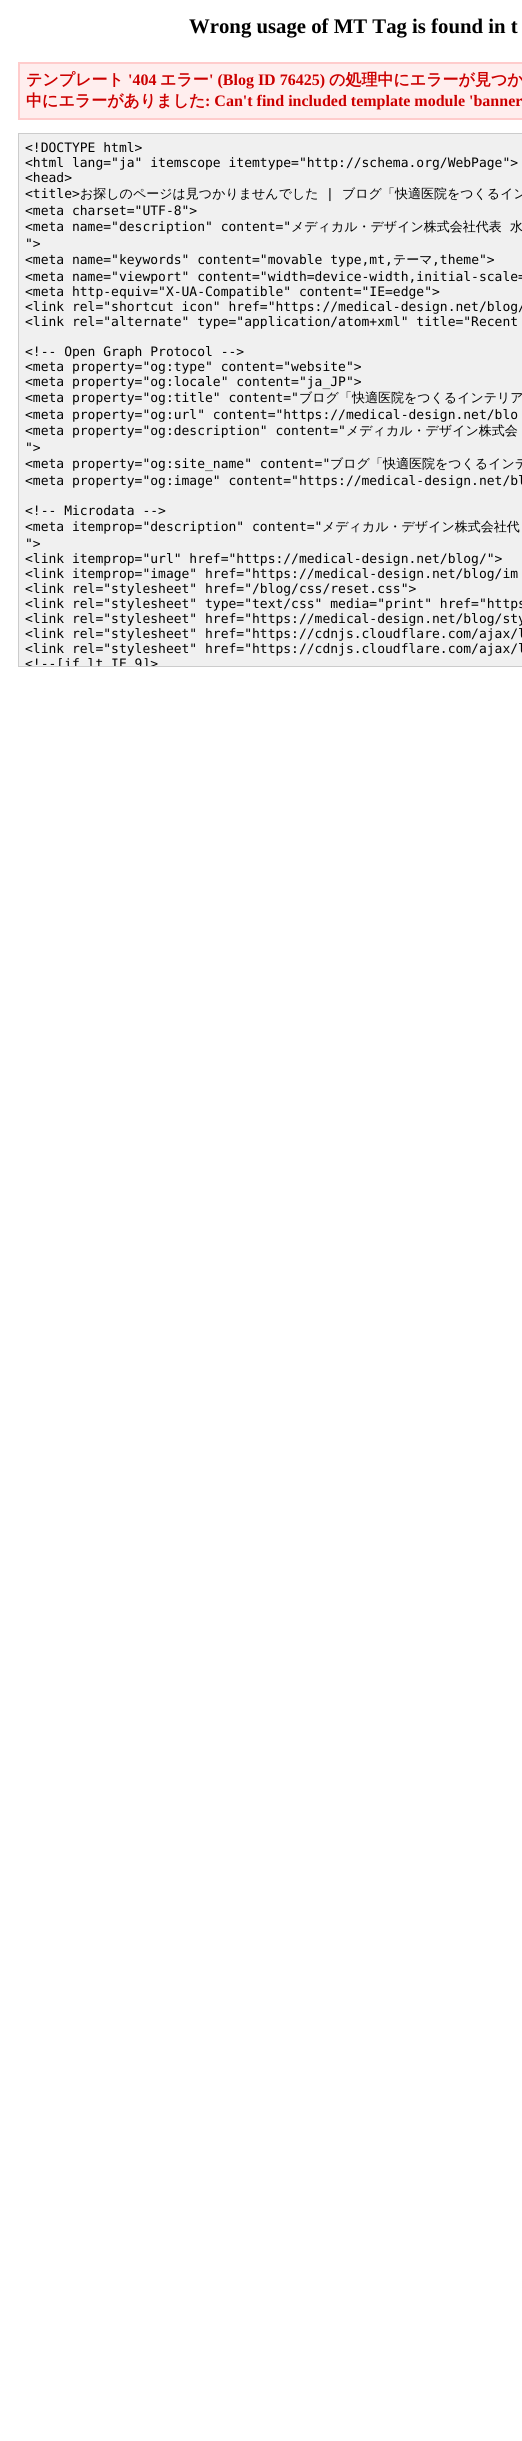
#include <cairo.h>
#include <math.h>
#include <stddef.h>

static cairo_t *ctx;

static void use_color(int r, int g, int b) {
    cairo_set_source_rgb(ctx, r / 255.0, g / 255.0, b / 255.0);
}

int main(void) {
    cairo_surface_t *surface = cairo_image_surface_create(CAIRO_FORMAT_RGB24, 522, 2441);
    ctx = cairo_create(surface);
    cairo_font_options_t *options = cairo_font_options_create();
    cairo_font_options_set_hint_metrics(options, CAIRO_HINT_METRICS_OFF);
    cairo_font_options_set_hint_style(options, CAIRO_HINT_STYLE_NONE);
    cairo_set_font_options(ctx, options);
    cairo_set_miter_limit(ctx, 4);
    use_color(255, 255, 255);
    cairo_paint(ctx);
    cairo_select_font_face(ctx, "Liberation Serif", CAIRO_FONT_SLANT_NORMAL, CAIRO_FONT_WEIGHT_BOLD);
    cairo_set_font_size(ctx, 20.75);
    use_color(0, 0, 0);
    cairo_move_to(ctx, 189, 33);
    cairo_show_text(ctx, "Wrong usage of MT Tag is found in t");
    use_color(255, 238, 238);
    cairo_rectangle(ctx, 19, 63, 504, 56);
    cairo_fill_preserve(ctx);
    use_color(255, 204, 204);
    cairo_stroke(ctx);
    cairo_select_font_face(ctx, "WenQuanYi Zen Hei", CAIRO_FONT_SLANT_NORMAL, CAIRO_FONT_WEIGHT_BOLD);
    cairo_set_font_size(ctx, 16);
    use_color(204, 0, 0);
    cairo_move_to(ctx, 26, 85);
    cairo_show_text(ctx, "テンプレート");
    cairo_select_font_face(ctx, "Liberation Serif", CAIRO_FONT_SLANT_NORMAL, CAIRO_FONT_WEIGHT_BOLD);
    cairo_move_to(ctx, 128, 85);
    cairo_show_text(ctx, "'404");
    cairo_select_font_face(ctx, "WenQuanYi Zen Hei", CAIRO_FONT_SLANT_NORMAL, CAIRO_FONT_WEIGHT_BOLD);
    cairo_move_to(ctx, 160, 85);
    cairo_show_text(ctx, "エラー");
    cairo_select_font_face(ctx, "Liberation Serif", CAIRO_FONT_SLANT_NORMAL, CAIRO_FONT_WEIGHT_BOLD);
    cairo_move_to(ctx, 209, 85);
    cairo_show_text(ctx, "' (Blog ID 76425)");
    cairo_select_font_face(ctx, "WenQuanYi Zen Hei", CAIRO_FONT_SLANT_NORMAL, CAIRO_FONT_WEIGHT_BOLD);
    cairo_move_to(ctx, 329, 85);
    cairo_show_text(ctx, "の処理中にエラーが見つか");
    cairo_move_to(ctx, 26, 106);
    cairo_show_text(ctx, "中にエラーがありました");
    cairo_select_font_face(ctx, "Liberation Serif", CAIRO_FONT_SLANT_NORMAL, CAIRO_FONT_WEIGHT_BOLD);
    cairo_move_to(ctx, 205, 106);
    cairo_show_text(ctx, ": Can't find included template module 'banner");
    use_color(240, 240, 240);
    cairo_rectangle(ctx, 18.5, 133.5, 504, 533);
    cairo_fill_preserve(ctx);
    use_color(204, 204, 204);
    cairo_set_line_width(ctx, 1);
    cairo_stroke(ctx);
    cairo_select_font_face(ctx, "DejaVu Sans Mono", CAIRO_FONT_SLANT_NORMAL, CAIRO_FONT_WEIGHT_NORMAL);
    cairo_set_font_size(ctx, 13);
    use_color(0, 0, 0);
    cairo_move_to(ctx, 25, 152);
    cairo_show_text(ctx, "<!DOCTYPE html>");
    cairo_move_to(ctx, 25, 167);
    cairo_show_text(ctx, "<html lang=\"ja\" itemscope itemtype=\"http://schema.org/WebPage\">");
    cairo_move_to(ctx, 25, 182);
    cairo_show_text(ctx, "<head>");
    cairo_move_to(ctx, 25, 198);
    cairo_show_text(ctx, "<title>");
    cairo_select_font_face(ctx, "WenQuanYi Zen Hei Medium", CAIRO_FONT_SLANT_NORMAL, CAIRO_FONT_WEIGHT_NORMAL);
    cairo_move_to(ctx, 80, 198);
    cairo_show_text(ctx, "お探しのページは見つかりませんでした");
    cairo_select_font_face(ctx, "DejaVu Sans Mono", CAIRO_FONT_SLANT_NORMAL, CAIRO_FONT_WEIGHT_NORMAL);
    cairo_move_to(ctx, 326, 198);
    cairo_show_text(ctx, "|");
    cairo_select_font_face(ctx, "WenQuanYi Zen Hei Medium", CAIRO_FONT_SLANT_NORMAL, CAIRO_FONT_WEIGHT_NORMAL);
    cairo_move_to(ctx, 342, 198);
    cairo_show_text(ctx, "ブログ「快適医院をつくるイン");
    cairo_select_font_face(ctx, "DejaVu Sans Mono", CAIRO_FONT_SLANT_NORMAL, CAIRO_FONT_WEIGHT_NORMAL);
    cairo_move_to(ctx, 25, 215);
    cairo_show_text(ctx, "<meta charset=\"UTF-8\">");
    cairo_move_to(ctx, 25, 231);
    cairo_show_text(ctx, "<meta name=\"description\" content=\"");
    cairo_select_font_face(ctx, "WenQuanYi Zen Hei Medium", CAIRO_FONT_SLANT_NORMAL, CAIRO_FONT_WEIGHT_NORMAL);
    cairo_move_to(ctx, 291, 231);
    cairo_show_text(ctx, "メディカル・デザイン株式会社代表");
    cairo_move_to(ctx, 510, 231);
    cairo_show_text(ctx, "水");
    cairo_select_font_face(ctx, "DejaVu Sans Mono", CAIRO_FONT_SLANT_NORMAL, CAIRO_FONT_WEIGHT_NORMAL);
    cairo_move_to(ctx, 25, 248);
    cairo_show_text(ctx, "\">");
    cairo_move_to(ctx, 25, 264);
    cairo_show_text(ctx, "<meta name=\"keywords\" content=\"movable type,mt,");
    cairo_select_font_face(ctx, "WenQuanYi Zen Hei Medium", CAIRO_FONT_SLANT_NORMAL, CAIRO_FONT_WEIGHT_NORMAL);
    cairo_move_to(ctx, 393, 264);
    cairo_show_text(ctx, "テーマ");
    cairo_select_font_face(ctx, "DejaVu Sans Mono", CAIRO_FONT_SLANT_NORMAL, CAIRO_FONT_WEIGHT_NORMAL);
    cairo_move_to(ctx, 432, 264);
    cairo_show_text(ctx, ",theme\">");
    cairo_move_to(ctx, 25, 281);
    cairo_show_text(ctx, "<meta name=\"viewport\" content=\"width=device-width,initial-scale=");
    cairo_move_to(ctx, 25, 296);
    cairo_show_text(ctx, "<meta http-equiv=\"X-UA-Compatible\" content=\"IE=edge\">");
    cairo_move_to(ctx, 25, 311);
    cairo_show_text(ctx, "<link rel=\"shortcut icon\" href=\"https://medical-design.net/blog/");
    cairo_move_to(ctx, 25, 326);
    cairo_show_text(ctx, "<link rel=\"alternate\" type=\"application/atom+xml\" title=\"Recent");
    cairo_move_to(ctx, 25, 356);
    cairo_show_text(ctx, "<!-- Open Graph Protocol -->");
    cairo_move_to(ctx, 25, 371);
    cairo_show_text(ctx, "<meta property=\"og:type\" content=\"website\">");
    cairo_move_to(ctx, 25, 386);
    cairo_show_text(ctx, "<meta property=\"og:locale\" content=\"ja_JP\">");
    cairo_move_to(ctx, 25, 402);
    cairo_show_text(ctx, "<meta property=\"og:title\" content=\"");
    cairo_select_font_face(ctx, "WenQuanYi Zen Hei Medium", CAIRO_FONT_SLANT_NORMAL, CAIRO_FONT_WEIGHT_NORMAL);
    cairo_move_to(ctx, 299, 402);
    cairo_show_text(ctx, "ブログ「快適医院をつくるインテリア");
    cairo_select_font_face(ctx, "DejaVu Sans Mono", CAIRO_FONT_SLANT_NORMAL, CAIRO_FONT_WEIGHT_NORMAL);
    cairo_move_to(ctx, 25, 419);
    cairo_show_text(ctx, "<meta property=\"og:url\" content=\"https://medical-design.net/blo");
    cairo_move_to(ctx, 25, 435);
    cairo_show_text(ctx, "<meta property=\"og:description\" content=\"");
    cairo_select_font_face(ctx, "WenQuanYi Zen Hei Medium", CAIRO_FONT_SLANT_NORMAL, CAIRO_FONT_WEIGHT_NORMAL);
    cairo_move_to(ctx, 346, 435);
    cairo_show_text(ctx, "メディカル・デザイン株式会");
    cairo_select_font_face(ctx, "DejaVu Sans Mono", CAIRO_FONT_SLANT_NORMAL, CAIRO_FONT_WEIGHT_NORMAL);
    cairo_move_to(ctx, 25, 452);
    cairo_show_text(ctx, "\">");
    cairo_move_to(ctx, 25, 468);
    cairo_show_text(ctx, "<meta property=\"og:site_name\" content=\"");
    cairo_select_font_face(ctx, "WenQuanYi Zen Hei Medium", CAIRO_FONT_SLANT_NORMAL, CAIRO_FONT_WEIGHT_NORMAL);
    cairo_move_to(ctx, 330, 468);
    cairo_show_text(ctx, "ブログ「快適医院をつくるインテ");
    cairo_select_font_face(ctx, "DejaVu Sans Mono", CAIRO_FONT_SLANT_NORMAL, CAIRO_FONT_WEIGHT_NORMAL);
    cairo_move_to(ctx, 25, 485);
    cairo_show_text(ctx, "<meta property=\"og:image\" content=\"https://medical-design.net/bl");
    cairo_move_to(ctx, 25, 515);
    cairo_show_text(ctx, "<!-- Microdata -->");
    cairo_move_to(ctx, 25, 531);
    cairo_show_text(ctx, "<meta itemprop=\"description\" content=\"");
    cairo_select_font_face(ctx, "WenQuanYi Zen Hei Medium", CAIRO_FONT_SLANT_NORMAL, CAIRO_FONT_WEIGHT_NORMAL);
    cairo_move_to(ctx, 322, 531);
    cairo_show_text(ctx, "メディカル・デザイン株式会社代");
    cairo_select_font_face(ctx, "DejaVu Sans Mono", CAIRO_FONT_SLANT_NORMAL, CAIRO_FONT_WEIGHT_NORMAL);
    cairo_move_to(ctx, 25, 548);
    cairo_show_text(ctx, "\">");
    cairo_move_to(ctx, 25, 563);
    cairo_show_text(ctx, "<link itemprop=\"url\" href=\"https://medical-design.net/blog/\">");
    cairo_move_to(ctx, 25, 578);
    cairo_show_text(ctx, "<link itemprop=\"image\" href=\"https://medical-design.net/blog/im");
    cairo_move_to(ctx, 25, 593);
    cairo_show_text(ctx, "<link rel=\"stylesheet\" href=\"/blog/css/reset.css\">");
    cairo_move_to(ctx, 25, 608);
    cairo_show_text(ctx, "<link rel=\"stylesheet\" type=\"text/css\" media=\"print\" href=\"https");
    cairo_move_to(ctx, 25, 623);
    cairo_show_text(ctx, "<link rel=\"stylesheet\" href=\"https://medical-design.net/blog/sty");
    cairo_move_to(ctx, 25, 638);
    cairo_show_text(ctx, "<link rel=\"stylesheet\" href=\"https://cdnjs.cloudflare.com/ajax/l");
    cairo_move_to(ctx, 25, 653);
    cairo_show_text(ctx, "<link rel=\"stylesheet\" href=\"https://cdnjs.cloudflare.com/ajax/l");
    cairo_save(ctx);
    cairo_rectangle(ctx, 19, 134, 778, 532);
    cairo_clip(ctx);
    cairo_move_to(ctx, 25, 668);
    cairo_show_text(ctx, "<!--[if lt IE 9]>");
    cairo_restore(ctx);
    cairo_surface_write_to_png(surface, "result.png");
    cairo_font_options_destroy(options);
    cairo_destroy(ctx);
    cairo_surface_destroy(surface);
    return 0;
}
